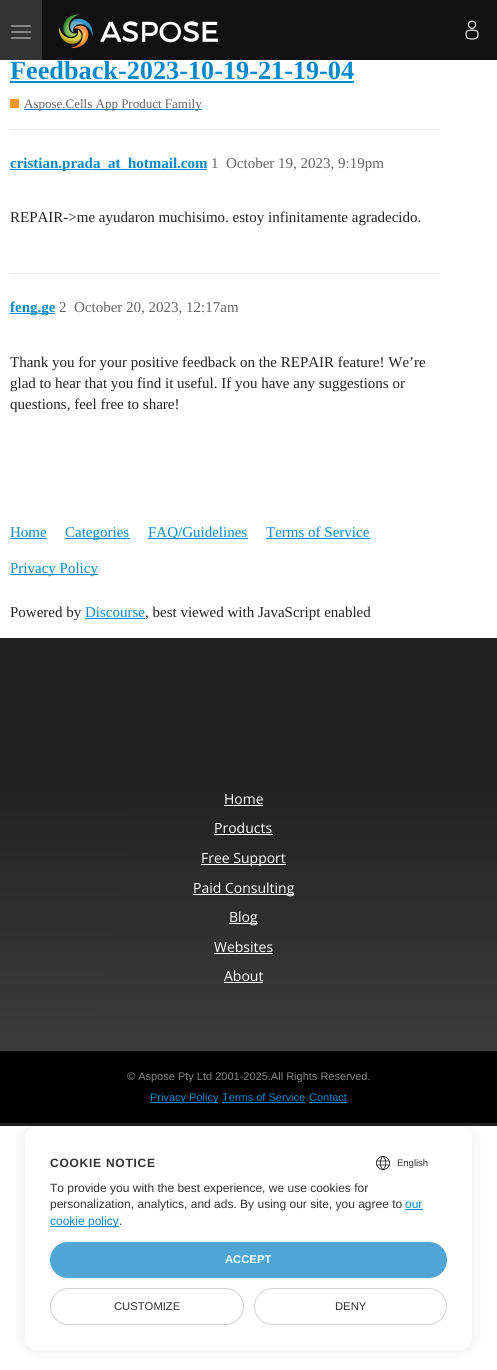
#include <cairo.h>
#include <math.h>
#include <stddef.h>

static cairo_t *ctx;

static void use_color(int r, int g, int b) {
    cairo_set_source_rgb(ctx, r / 255.0, g / 255.0, b / 255.0);
}

static void spaced_text(double x, double y, const char *s, double letter, double word) {
    cairo_move_to(ctx, x, y);
    while (*s) {
        char ch[5] = {0};
        int n = 0;
        do ch[n++] = *s++; while ((*s & 0xC0) == 0x80);
        cairo_show_text(ctx, ch);
        cairo_rel_move_to(ctx, letter + word * (*ch == ' '), 0);
    }
}

static void round_rect(double x, double y, double w, double h, double r) {
    cairo_new_sub_path(ctx);
    cairo_arc(ctx, x + w - r, y + h - r, r, 0, M_PI / 2);
    cairo_arc(ctx, x + r, y + h - r, r, M_PI / 2, M_PI);
    cairo_arc(ctx, x + r, y + r, r, M_PI, 1.5 * M_PI);
    cairo_arc(ctx, x + w - r, y + r, r, 1.5 * M_PI, 2 * M_PI);
    cairo_close_path(ctx);
}

static void shadow(double x, double y, double w, double h, double r, double blur, double alpha) {
    cairo_push_group_with_content(ctx, CAIRO_CONTENT_ALPHA);
    cairo_set_operator(ctx, CAIRO_OPERATOR_SOURCE);
    for (int i = 15; i >= -15 && fmin(w, h) + blur * i / 3 > 0; i -= 2) {
        double e = blur * i / 6;
        cairo_set_source_rgba(ctx, 0, 0, 0, alpha * erfc((i - 1) / 8.5) / 2);
        round_rect(x - e, y - e, w + 2 * e, h + 2 * e, fmax(0, fmin(r + e + blur * .6, fmin(w, h) / 2 + e)));
        cairo_fill(ctx);
    }
    cairo_pattern_t *soft = cairo_pop_group(ctx);
    cairo_mask(ctx, soft);
    cairo_pattern_destroy(soft);
}

static void picture(const char *path, double x, double y, double w, double h) {
    cairo_surface_t *image = cairo_image_surface_create_from_png(path);
    cairo_save(ctx);
    cairo_set_source_surface(ctx, image, x, y);
    cairo_rectangle(ctx, x, y, w, h);
    cairo_fill(ctx);
    cairo_restore(ctx);
    cairo_surface_destroy(image);
}

int main(void) {
    cairo_surface_t *surface = cairo_image_surface_create(CAIRO_FORMAT_RGB24, 497, 1370);
    ctx = cairo_create(surface);
    cairo_font_options_t *options = cairo_font_options_create();
    cairo_font_options_set_hint_metrics(options, CAIRO_HINT_METRICS_OFF);
    cairo_font_options_set_hint_style(options, CAIRO_HINT_STYLE_NONE);
    cairo_set_font_options(ctx, options);
    cairo_set_miter_limit(ctx, 4);
    cairo_pattern_t *gradient;
    use_color(255, 255, 255);
    cairo_paint(ctx);
    use_color(17, 17, 17);
    cairo_rectangle(ctx, 42, 0, 455, 60);
    cairo_fill(ctx);
    use_color(51, 51, 51);
    cairo_rectangle(ctx, 0, 0, 42, 60);
    cairo_fill(ctx);
    use_color(136, 136, 136);
    round_rect(11, 25, 20, 2, 1);
    cairo_fill(ctx);
    round_rect(11, 31, 20, 2, 1);
    cairo_fill(ctx);
    round_rect(11, 37, 20, 2, 1);
    cairo_fill(ctx);
    picture("img1.png", 58, 14, 160, 35);
    picture("img2.png", 465, 20, 14, 20);
    cairo_select_font_face(ctx, "Liberation Serif", CAIRO_FONT_SLANT_NORMAL, CAIRO_FONT_WEIGHT_BOLD);
    cairo_set_font_size(ctx, 26.25);
    use_color(0, 136, 204);
    cairo_move_to(ctx, 10, 79);
    cairo_show_text(ctx, "Feedback-2023-10-19-21-19-04");
    cairo_rectangle(ctx, 10, 81, 344, 2);
    cairo_fill(ctx);
    use_color(247, 148, 29);
    cairo_rectangle(ctx, 10, 99, 9, 9);
    cairo_fill(ctx);
    use_color(0, 136, 204);
    cairo_rectangle(ctx, 24, 109, 178, 1);
    cairo_fill(ctx);
    cairo_select_font_face(ctx, "Liberation Serif", CAIRO_FONT_SLANT_NORMAL, CAIRO_FONT_WEIGHT_NORMAL);
    cairo_set_font_size(ctx, 13);
    use_color(100, 100, 100);
    cairo_move_to(ctx, 24, 108);
    cairo_show_text(ctx, "Aspose.Cells App Product Family");
    use_color(233, 233, 233);
    cairo_rectangle(ctx, 10, 129, 430, 1);
    cairo_fill(ctx);
    use_color(0, 136, 204);
    cairo_rectangle(ctx, 10, 169, 197, 1);
    cairo_fill(ctx);
    cairo_select_font_face(ctx, "Liberation Serif", CAIRO_FONT_SLANT_NORMAL, CAIRO_FONT_WEIGHT_BOLD);
    cairo_set_font_size(ctx, 15);
    cairo_move_to(ctx, 10, 168);
    cairo_show_text(ctx, "cristian.prada_at_hotmail.com");
    cairo_select_font_face(ctx, "Liberation Serif", CAIRO_FONT_SLANT_NORMAL, CAIRO_FONT_WEIGHT_NORMAL);
    use_color(100, 100, 100);
    cairo_move_to(ctx, 211, 168);
    cairo_show_text(ctx, "1");
    cairo_move_to(ctx, 226, 168);
    cairo_show_text(ctx, "October 19, 2023, 9:19pm");
    use_color(34, 34, 34);
    cairo_move_to(ctx, 10, 222);
    cairo_show_text(ctx, "REPAIR->me ayudaron muchisimo. estoy infinitamente agradecido.");
    use_color(233, 233, 233);
    cairo_rectangle(ctx, 10, 273, 430, 1);
    cairo_fill(ctx);
    use_color(0, 136, 204);
    cairo_rectangle(ctx, 10, 313, 45, 1);
    cairo_fill(ctx);
    cairo_select_font_face(ctx, "Liberation Serif", CAIRO_FONT_SLANT_NORMAL, CAIRO_FONT_WEIGHT_BOLD);
    cairo_move_to(ctx, 10, 312);
    cairo_show_text(ctx, "feng.ge");
    cairo_select_font_face(ctx, "Liberation Serif", CAIRO_FONT_SLANT_NORMAL, CAIRO_FONT_WEIGHT_NORMAL);
    use_color(100, 100, 100);
    cairo_move_to(ctx, 59, 312);
    cairo_show_text(ctx, "2");
    cairo_move_to(ctx, 74, 312);
    cairo_show_text(ctx, "October 20, 2023, 12:17am");
    use_color(34, 34, 34);
    cairo_move_to(ctx, 10, 367);
    cairo_show_text(ctx, "Thank you for your positive feedback on the REPAIR feature! We’re");
    cairo_move_to(ctx, 10, 388);
    cairo_show_text(ctx, "glad to hear that you find it useful. If you have any suggestions or");
    cairo_move_to(ctx, 10, 409);
    cairo_show_text(ctx, "questions, feel free to share!");
    use_color(0, 136, 204);
    cairo_move_to(ctx, 10, 537);
    cairo_show_text(ctx, "Home");
    cairo_rectangle(ctx, 10, 538, 37, 1);
    cairo_fill(ctx);
    cairo_rectangle(ctx, 65, 538, 65, 1);
    cairo_fill(ctx);
    cairo_move_to(ctx, 65, 537);
    cairo_show_text(ctx, "Categories");
    cairo_rectangle(ctx, 148, 538, 100, 1);
    cairo_fill(ctx);
    cairo_move_to(ctx, 148, 537);
    cairo_show_text(ctx, "FAQ/Guidelines");
    cairo_move_to(ctx, 266, 537);
    cairo_show_text(ctx, "Terms of Service");
    cairo_rectangle(ctx, 266, 538, 104, 1);
    cairo_fill(ctx);
    cairo_rectangle(ctx, 10, 574, 88, 1);
    cairo_fill(ctx);
    cairo_move_to(ctx, 10, 573);
    cairo_show_text(ctx, "Privacy Policy");
    use_color(34, 34, 34);
    cairo_move_to(ctx, 10, 617);
    cairo_show_text(ctx, "Powered by");
    use_color(0, 136, 204);
    cairo_move_to(ctx, 85, 617);
    cairo_show_text(ctx, "Discourse");
    cairo_rectangle(ctx, 85, 618, 60, 1);
    cairo_fill(ctx);
    use_color(34, 34, 34);
    cairo_move_to(ctx, 145, 617);
    cairo_show_text(ctx, ", best viewed with JavaScript enabled");
    gradient = cairo_pattern_create_linear(248, 638, 249, 1126);
    cairo_pattern_add_color_stop_rgba(gradient, 0.3, 0.133, 0.133, 0.133, 1);
    cairo_pattern_add_color_stop_rgba(gradient, 1, 0.267, 0.267, 0.267, 1);
    cairo_set_source(ctx, gradient);
    cairo_pattern_destroy(gradient);
    cairo_rectangle(ctx, 0, 638, 497, 413);
    cairo_fill(ctx);
    cairo_select_font_face(ctx, "Open Sans", CAIRO_FONT_SLANT_NORMAL, CAIRO_FONT_WEIGHT_NORMAL);
    cairo_set_font_size(ctx, 14);
    use_color(255, 255, 255);
    cairo_move_to(ctx, 224, 804);
    cairo_show_text(ctx, "Home");
    cairo_rectangle(ctx, 224, 805, 39, 1);
    cairo_fill(ctx);
    cairo_move_to(ctx, 214, 833);
    cairo_show_text(ctx, "Products");
    cairo_rectangle(ctx, 214, 834, 59, 1);
    cairo_fill(ctx);
    cairo_rectangle(ctx, 201, 864, 85, 1);
    cairo_fill(ctx);
    cairo_move_to(ctx, 201, 863);
    cairo_show_text(ctx, "Free Support");
    cairo_rectangle(ctx, 193, 894, 101, 1);
    cairo_fill(ctx);
    cairo_move_to(ctx, 193, 893);
    cairo_show_text(ctx, "Paid Consulting");
    cairo_rectangle(ctx, 229, 923, 29, 1);
    cairo_fill(ctx);
    cairo_move_to(ctx, 229, 922);
    cairo_show_text(ctx, "Blog");
    cairo_move_to(ctx, 214, 952);
    cairo_show_text(ctx, "Websites");
    cairo_rectangle(ctx, 214, 953, 59, 1);
    cairo_fill(ctx);
    cairo_move_to(ctx, 224, 981);
    cairo_show_text(ctx, "About");
    cairo_rectangle(ctx, 224, 982, 39, 1);
    cairo_fill(ctx);
    use_color(0, 0, 0);
    cairo_rectangle(ctx, 0, 1051, 497, 72);
    cairo_fill(ctx);
    use_color(34, 34, 34);
    cairo_rectangle(ctx, 0, 1123, 497, 3);
    cairo_fill(ctx);
    cairo_select_font_face(ctx, "Liberation Sans", CAIRO_FONT_SLANT_NORMAL, CAIRO_FONT_WEIGHT_NORMAL);
    cairo_set_font_size(ctx, 11);
    use_color(134, 132, 132);
    cairo_move_to(ctx, 127, 1080);
    cairo_show_text(ctx, "© Aspose Pty Ltd 2001-2025.All Rights Reserved.");
    use_color(0, 136, 204);
    cairo_rectangle(ctx, 150, 1102, 68, 1);
    cairo_fill(ctx);
    cairo_move_to(ctx, 150, 1101);
    cairo_show_text(ctx, "Privacy Policy");
    cairo_move_to(ctx, 222, 1101);
    cairo_show_text(ctx, "Terms of Service");
    cairo_rectangle(ctx, 222, 1102, 83, 1);
    cairo_fill(ctx);
    cairo_move_to(ctx, 309, 1101);
    cairo_show_text(ctx, "Contact");
    cairo_rectangle(ctx, 309, 1102, 38, 1);
    cairo_fill(ctx);
    use_color(0, 0, 0);
    shadow(25, 1126, 447, 224, 12, 6.5, 0.1);
    use_color(255, 255, 255);
    round_rect(25, 1126, 447, 224, 12);
    cairo_fill(ctx);
    cairo_select_font_face(ctx, "Liberation Sans", CAIRO_FONT_SLANT_NORMAL, CAIRO_FONT_WEIGHT_BOLD);
    cairo_set_font_size(ctx, 12);
    use_color(51, 51, 51);
    spaced_text(50, 1167, "COOKIE NOTICE", 0.75, 0);
    picture("img3.png", 376, 1156, 14, 14);
    cairo_select_font_face(ctx, "Liberation Sans", CAIRO_FONT_SLANT_NORMAL, CAIRO_FONT_WEIGHT_NORMAL);
    cairo_set_font_size(ctx, 9.5);
    cairo_move_to(ctx, 397, 1166);
    cairo_show_text(ctx, "English");
    cairo_set_font_size(ctx, 12);
    cairo_move_to(ctx, 50, 1192);
    cairo_show_text(ctx, "To provide you with the best experience, we use cookies for");
    cairo_move_to(ctx, 50, 1208);
    cairo_show_text(ctx, "personalization, analytics, and ads. By using our site, you agree to");
    use_color(0, 136, 204);
    cairo_move_to(ctx, 405, 1208);
    cairo_show_text(ctx, "our");
    cairo_rectangle(ctx, 405, 1209, 18, 1);
    cairo_fill(ctx);
    cairo_rectangle(ctx, 50, 1226, 69, 1);
    cairo_fill(ctx);
    cairo_move_to(ctx, 50, 1225);
    cairo_show_text(ctx, "cookie policy");
    use_color(51, 51, 51);
    cairo_move_to(ctx, 119, 1225);
    cairo_show_text(ctx, ".");
    use_color(79, 165, 211);
    round_rect(50, 1242, 397, 36, 18);
    cairo_fill(ctx);
    cairo_select_font_face(ctx, "Liberation Sans", CAIRO_FONT_SLANT_NORMAL, CAIRO_FONT_WEIGHT_BOLD);
    cairo_set_font_size(ctx, 11.25);
    use_color(255, 255, 255);
    cairo_move_to(ctx, 225, 1263);
    cairo_show_text(ctx, "ACCEPT");
    round_rect(50.5, 1288.5, 193, 36, 18);
    use_color(211, 211, 211);
    cairo_set_line_width(ctx, 1);
    cairo_stroke(ctx);
    cairo_select_font_face(ctx, "Liberation Sans", CAIRO_FONT_SLANT_NORMAL, CAIRO_FONT_WEIGHT_NORMAL);
    use_color(51, 51, 51);
    cairo_move_to(ctx, 114, 1310);
    cairo_show_text(ctx, "CUSTOMIZE");
    round_rect(254.5, 1288.5, 192, 36, 18);
    use_color(211, 211, 211);
    cairo_stroke(ctx);
    use_color(51, 51, 51);
    cairo_move_to(ctx, 335, 1310);
    cairo_show_text(ctx, "DENY");
    cairo_surface_write_to_png(surface, "result.png");
    cairo_font_options_destroy(options);
    cairo_destroy(ctx);
    cairo_surface_destroy(surface);
    return 0;
}
